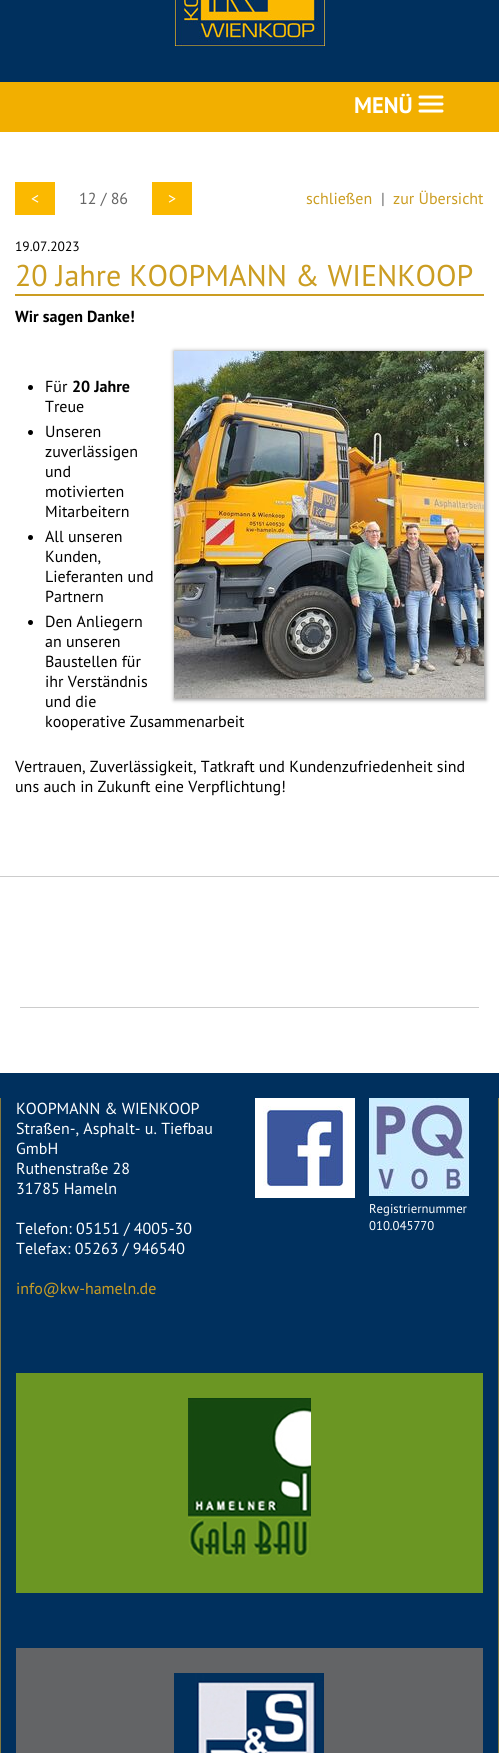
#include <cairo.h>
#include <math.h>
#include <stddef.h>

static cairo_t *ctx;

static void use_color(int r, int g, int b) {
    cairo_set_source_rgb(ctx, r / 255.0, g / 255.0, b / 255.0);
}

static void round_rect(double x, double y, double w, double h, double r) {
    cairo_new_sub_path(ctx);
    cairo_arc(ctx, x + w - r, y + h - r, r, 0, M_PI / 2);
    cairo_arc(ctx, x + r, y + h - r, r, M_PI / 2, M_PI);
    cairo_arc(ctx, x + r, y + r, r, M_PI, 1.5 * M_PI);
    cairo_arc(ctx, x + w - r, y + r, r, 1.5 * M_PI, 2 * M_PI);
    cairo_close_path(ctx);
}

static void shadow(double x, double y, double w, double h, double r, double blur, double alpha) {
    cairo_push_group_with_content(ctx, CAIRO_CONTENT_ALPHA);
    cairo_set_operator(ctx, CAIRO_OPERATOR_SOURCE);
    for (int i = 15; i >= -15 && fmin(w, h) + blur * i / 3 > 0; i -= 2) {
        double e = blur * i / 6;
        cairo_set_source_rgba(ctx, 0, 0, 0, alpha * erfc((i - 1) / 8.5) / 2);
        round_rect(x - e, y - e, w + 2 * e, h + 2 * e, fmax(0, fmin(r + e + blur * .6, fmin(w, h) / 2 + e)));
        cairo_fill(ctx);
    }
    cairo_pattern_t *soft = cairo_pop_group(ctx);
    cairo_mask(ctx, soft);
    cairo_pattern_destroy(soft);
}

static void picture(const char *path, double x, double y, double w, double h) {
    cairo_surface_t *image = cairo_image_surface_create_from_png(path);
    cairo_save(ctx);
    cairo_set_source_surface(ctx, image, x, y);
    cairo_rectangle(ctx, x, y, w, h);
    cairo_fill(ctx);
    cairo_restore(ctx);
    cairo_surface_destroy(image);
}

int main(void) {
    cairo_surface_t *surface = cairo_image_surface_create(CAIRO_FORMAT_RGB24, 499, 1753);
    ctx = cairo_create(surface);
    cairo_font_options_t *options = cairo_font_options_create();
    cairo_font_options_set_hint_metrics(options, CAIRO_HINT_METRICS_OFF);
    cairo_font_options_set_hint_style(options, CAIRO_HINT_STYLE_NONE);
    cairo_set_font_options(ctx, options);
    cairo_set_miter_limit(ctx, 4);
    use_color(0, 48, 94);
    cairo_paint(ctx);
    picture("img1.png", 175, 0, 150, 46);
    use_color(242, 175, 0);
    cairo_rectangle(ctx, 0, 82, 499, 50);
    cairo_fill(ctx);
    cairo_select_font_face(ctx, "PT Sans", CAIRO_FONT_SLANT_NORMAL, CAIRO_FONT_WEIGHT_BOLD);
    cairo_set_font_size(ctx, 22.5);
    use_color(255, 255, 255);
    cairo_move_to(ctx, 354, 113);
    cairo_show_text(ctx, "MENÜ");
    picture("img2.png", 418, 95, 26, 18);
    cairo_rectangle(ctx, 0, 132, 499, 941);
    cairo_fill(ctx);
    use_color(251, 185, 0);
    cairo_rectangle(ctx, 15, 182, 40, 33);
    cairo_fill(ctx);
    cairo_select_font_face(ctx, "PT Sans", CAIRO_FONT_SLANT_NORMAL, CAIRO_FONT_WEIGHT_NORMAL);
    cairo_set_font_size(ctx, 16);
    use_color(255, 255, 255);
    cairo_move_to(ctx, 31, 204);
    cairo_show_text(ctx, "<");
    use_color(102, 102, 102);
    cairo_move_to(ctx, 79, 204);
    cairo_show_text(ctx, "12 / 86");
    use_color(251, 185, 0);
    cairo_rectangle(ctx, 152, 182, 40, 33);
    cairo_fill(ctx);
    use_color(255, 255, 255);
    cairo_move_to(ctx, 168, 204);
    cairo_show_text(ctx, ">");
    use_color(203, 157, 34);
    cairo_move_to(ctx, 306, 204);
    cairo_show_text(ctx, "schließen");
    use_color(102, 102, 102);
    cairo_move_to(ctx, 381, 204);
    cairo_show_text(ctx, "|");
    use_color(203, 157, 34);
    cairo_move_to(ctx, 393, 204);
    cairo_show_text(ctx, "zur Übersicht");
    cairo_set_font_size(ctx, 13.5);
    use_color(0, 0, 0);
    cairo_move_to(ctx, 15, 251);
    cairo_show_text(ctx, "19.07.2023");
    use_color(203, 157, 34);
    cairo_rectangle(ctx, 15, 294, 469, 2);
    cairo_fill(ctx);
    cairo_set_font_size(ctx, 30);
    cairo_move_to(ctx, 15, 286);
    cairo_show_text(ctx, "20 Jahre KOOPMANN & WIENKOOP");
    cairo_select_font_face(ctx, "PT Sans", CAIRO_FONT_SLANT_NORMAL, CAIRO_FONT_WEIGHT_BOLD);
    cairo_set_font_size(ctx, 16);
    use_color(0, 0, 0);
    cairo_move_to(ctx, 15, 322);
    cairo_show_text(ctx, "Wir sagen Danke!");
    cairo_new_path(ctx);
    cairo_arc(ctx, 30.5, 387.5, 2.5, 0, 2 * M_PI);
    cairo_fill(ctx);
    cairo_select_font_face(ctx, "PT Sans", CAIRO_FONT_SLANT_NORMAL, CAIRO_FONT_WEIGHT_NORMAL);
    cairo_move_to(ctx, 45, 392);
    cairo_show_text(ctx, "Für");
    cairo_select_font_face(ctx, "PT Sans", CAIRO_FONT_SLANT_NORMAL, CAIRO_FONT_WEIGHT_BOLD);
    cairo_move_to(ctx, 72, 392);
    cairo_show_text(ctx, "20 Jahre");
    cairo_select_font_face(ctx, "PT Sans", CAIRO_FONT_SLANT_NORMAL, CAIRO_FONT_WEIGHT_NORMAL);
    cairo_move_to(ctx, 45, 412);
    cairo_show_text(ctx, "Treue");
    cairo_new_path(ctx);
    cairo_arc(ctx, 30.5, 432.5, 2.5, 0, 2 * M_PI);
    cairo_fill(ctx);
    cairo_move_to(ctx, 45, 437);
    cairo_show_text(ctx, "Unseren");
    cairo_move_to(ctx, 45, 457);
    cairo_show_text(ctx, "zuverlässigen");
    cairo_move_to(ctx, 45, 477);
    cairo_show_text(ctx, "und");
    cairo_move_to(ctx, 45, 497);
    cairo_show_text(ctx, "motivierten");
    cairo_move_to(ctx, 45, 517);
    cairo_show_text(ctx, "Mitarbeitern");
    cairo_new_path(ctx);
    cairo_arc(ctx, 30.5, 537.5, 2.5, 0, 2 * M_PI);
    cairo_fill(ctx);
    cairo_move_to(ctx, 45, 542);
    cairo_show_text(ctx, "All unseren");
    cairo_move_to(ctx, 45, 562);
    cairo_show_text(ctx, "Kunden,");
    cairo_move_to(ctx, 45, 582);
    cairo_show_text(ctx, "Lieferanten und");
    cairo_move_to(ctx, 45, 602);
    cairo_show_text(ctx, "Partnern");
    cairo_new_path(ctx);
    cairo_arc(ctx, 30.5, 622.5, 2.5, 0, 2 * M_PI);
    cairo_fill(ctx);
    cairo_move_to(ctx, 45, 627);
    cairo_show_text(ctx, "Den Anliegern");
    cairo_move_to(ctx, 45, 647);
    cairo_show_text(ctx, "an unseren");
    cairo_move_to(ctx, 45, 667);
    cairo_show_text(ctx, "Baustellen für");
    cairo_move_to(ctx, 45, 687);
    cairo_show_text(ctx, "ihr Verständnis");
    cairo_move_to(ctx, 45, 707);
    cairo_show_text(ctx, "und die");
    cairo_move_to(ctx, 45, 727);
    cairo_show_text(ctx, "kooperative Zusammenarbeit");
    use_color(153, 153, 153);
    shadow(174, 351, 312, 349, 0, 2, 1);
    picture("img3.png", 174, 351, 310, 347);
    use_color(0, 0, 0);
    cairo_move_to(ctx, 15, 772);
    cairo_show_text(ctx, "Vertrauen, Zuverlässigkeit, Tatkraft und Kundenzufriedenheit sind");
    cairo_move_to(ctx, 15, 792);
    cairo_show_text(ctx, "uns auch in Zukunft eine Verpflichtung!");
    use_color(204, 204, 204);
    cairo_rectangle(ctx, 0, 876, 499, 1);
    cairo_fill(ctx);
    cairo_rectangle(ctx, 20, 1007, 459, 1);
    cairo_fill(ctx);
    use_color(129, 119, 63);
    cairo_new_path(ctx);
    cairo_move_to(ctx, 499, 1098);
    cairo_line_to(ctx, 499, 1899);
    cairo_line_to(ctx, 498, 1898);
    cairo_line_to(ctx, 498, 1098);
    cairo_close_path(ctx);
    cairo_fill(ctx);
    cairo_new_path(ctx);
    cairo_move_to(ctx, 0, 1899);
    cairo_line_to(ctx, 0, 1098);
    cairo_line_to(ctx, 1, 1098);
    cairo_line_to(ctx, 1, 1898);
    cairo_close_path(ctx);
    cairo_fill(ctx);
    use_color(255, 255, 255);
    cairo_move_to(ctx, 16, 1114);
    cairo_show_text(ctx, "KOOPMANN & WIENKOOP");
    picture("img4.png", 255, 1098, 100, 100);
    cairo_move_to(ctx, 16, 1134);
    cairo_show_text(ctx, "Straßen-, Asphalt- u. Tiefbau");
    cairo_move_to(ctx, 16, 1154);
    cairo_show_text(ctx, "GmbH");
    cairo_move_to(ctx, 16, 1174);
    cairo_show_text(ctx, "Ruthenstraße 28");
    cairo_move_to(ctx, 16, 1194);
    cairo_show_text(ctx, "31785 Hameln");
    cairo_move_to(ctx, 16, 1234);
    cairo_show_text(ctx, "Telefon: 05151 / 4005-30");
    picture("img5.png", 369, 1098, 100, 98);
    cairo_set_font_size(ctx, 12.75);
    cairo_move_to(ctx, 369, 1213);
    cairo_show_text(ctx, "Registriernummer");
    cairo_move_to(ctx, 369, 1230);
    cairo_show_text(ctx, "010.045770");
    cairo_set_font_size(ctx, 16);
    cairo_move_to(ctx, 16, 1254);
    cairo_show_text(ctx, "Telefax: 05263 / 946540");
    use_color(203, 157, 34);
    cairo_move_to(ctx, 16, 1294);
    cairo_show_text(ctx, "info@kw-hameln.de");
    use_color(107, 150, 35);
    cairo_rectangle(ctx, 16, 1373, 467, 220);
    cairo_fill(ctx);
    picture("img6.png", 188, 1398, 123, 160);
    use_color(99, 100, 102);
    cairo_rectangle(ctx, 16, 1648, 467, 105);
    cairo_fill(ctx);
    picture("img7.png", 174, 1673, 150, 80);
    cairo_surface_write_to_png(surface, "result.png");
    cairo_font_options_destroy(options);
    cairo_destroy(ctx);
    cairo_surface_destroy(surface);
    return 0;
}
